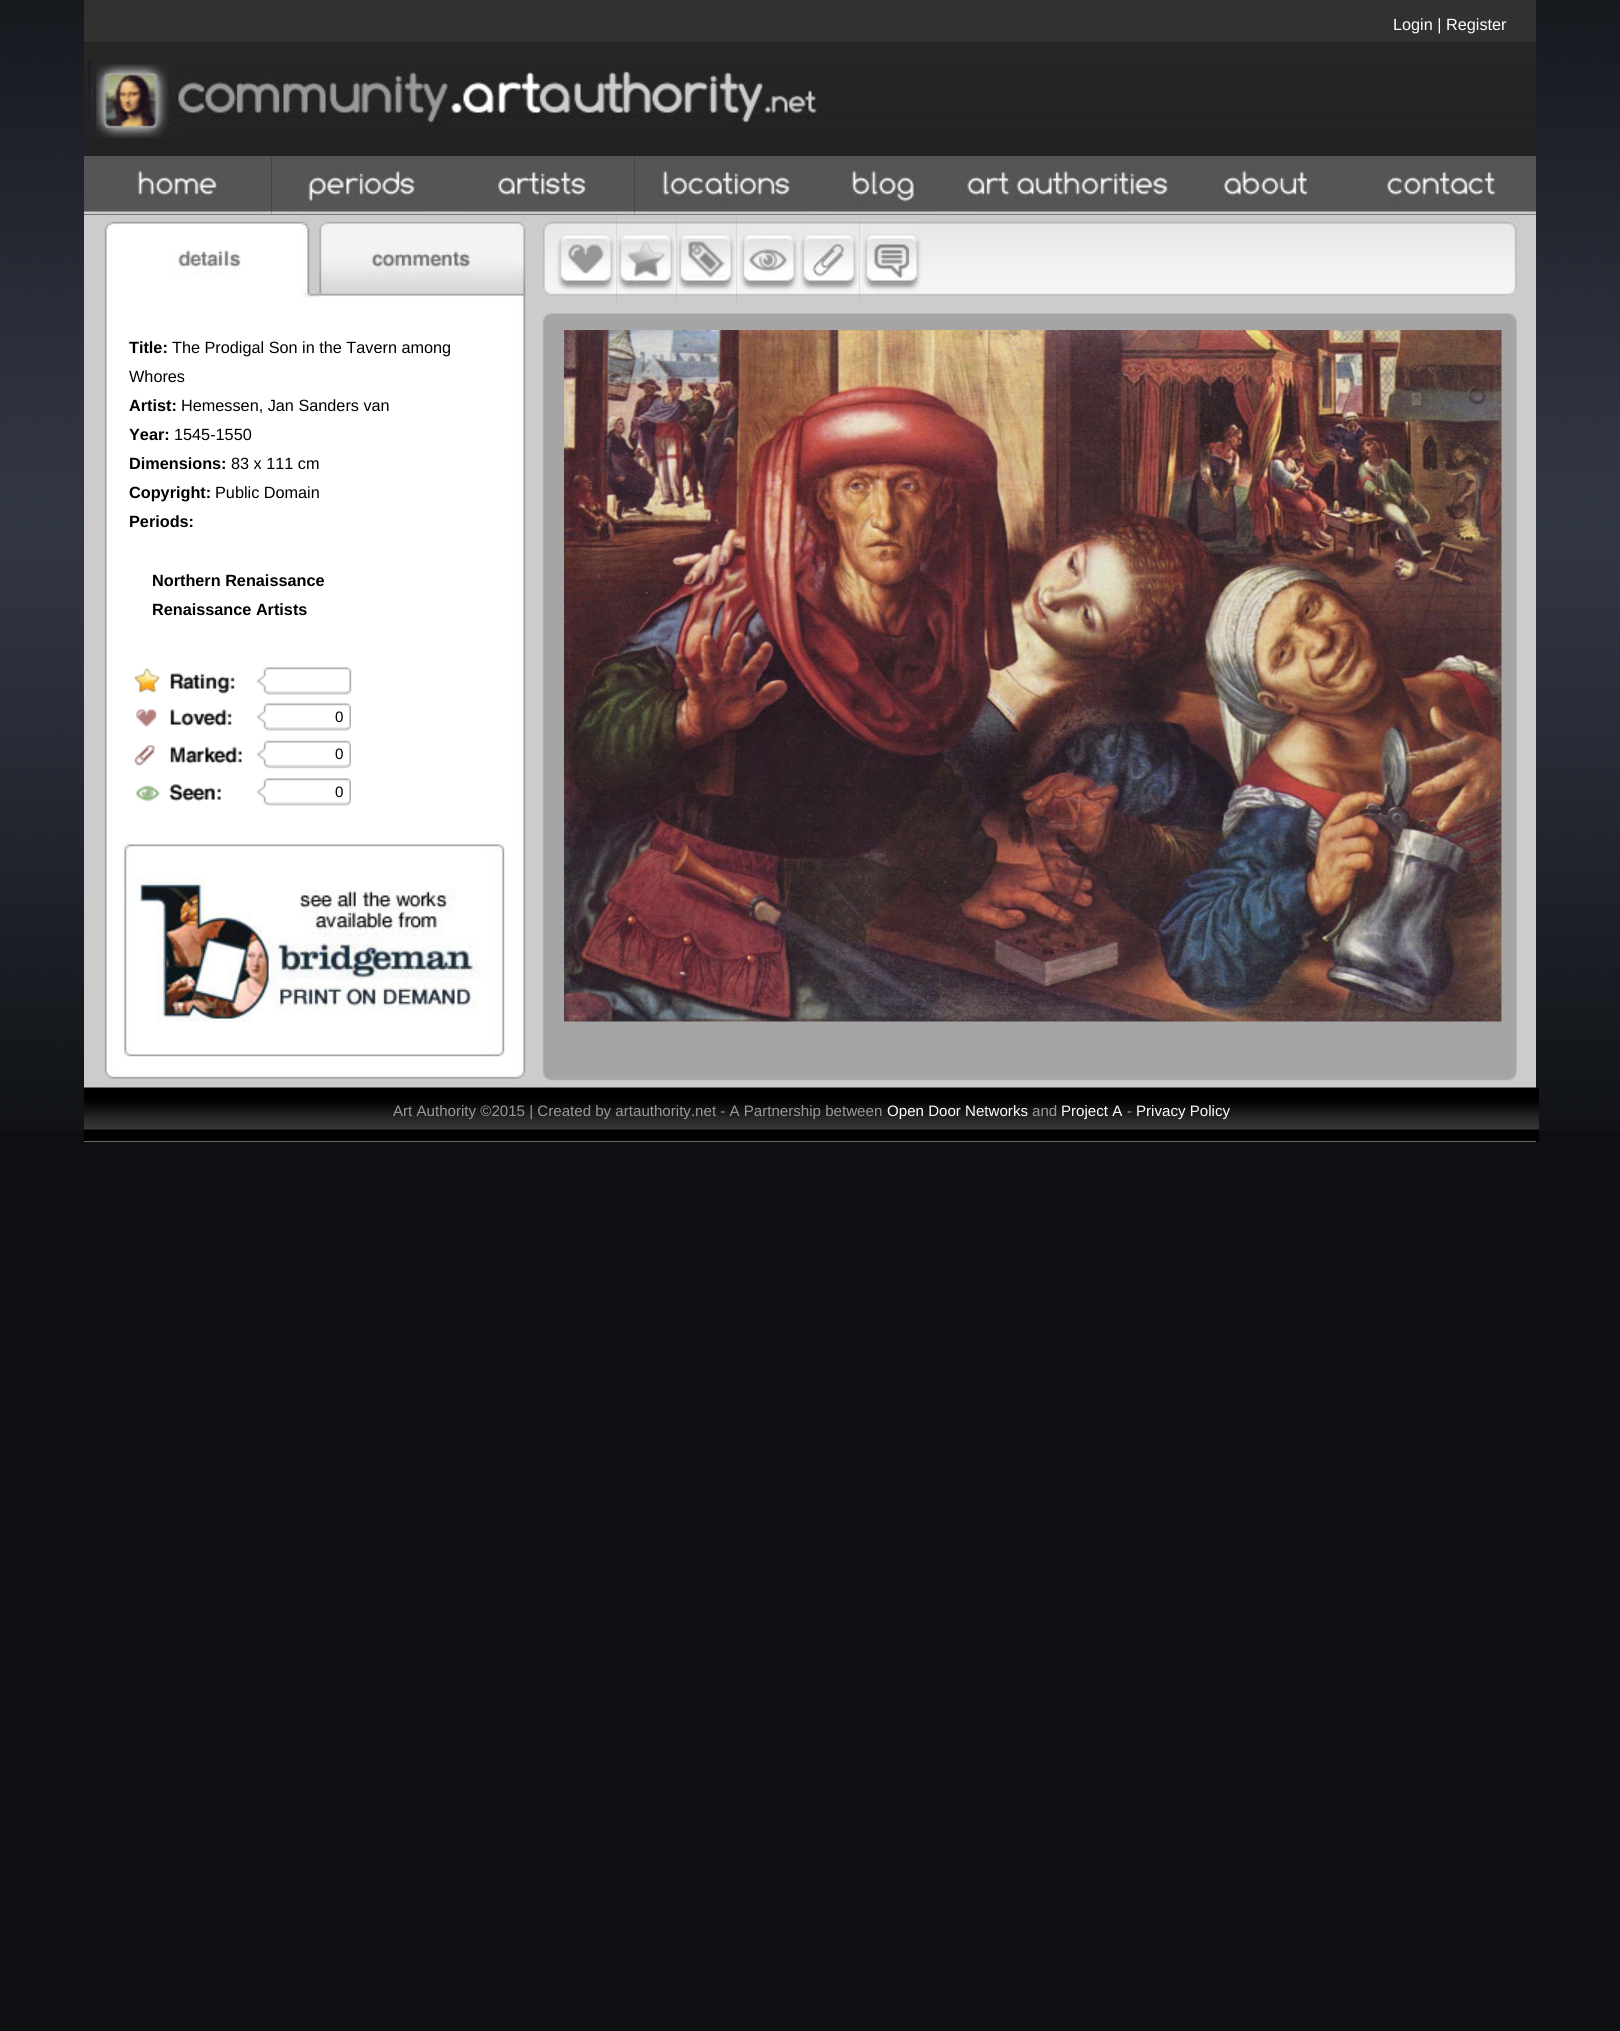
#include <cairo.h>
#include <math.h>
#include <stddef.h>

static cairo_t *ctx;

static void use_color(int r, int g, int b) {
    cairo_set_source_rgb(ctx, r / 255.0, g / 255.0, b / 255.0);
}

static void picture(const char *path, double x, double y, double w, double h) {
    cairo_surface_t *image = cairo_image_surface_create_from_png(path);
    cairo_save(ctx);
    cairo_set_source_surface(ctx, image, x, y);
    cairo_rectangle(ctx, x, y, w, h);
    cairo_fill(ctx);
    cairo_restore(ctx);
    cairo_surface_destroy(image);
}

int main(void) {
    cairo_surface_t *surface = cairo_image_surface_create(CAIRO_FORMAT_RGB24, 1620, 2031);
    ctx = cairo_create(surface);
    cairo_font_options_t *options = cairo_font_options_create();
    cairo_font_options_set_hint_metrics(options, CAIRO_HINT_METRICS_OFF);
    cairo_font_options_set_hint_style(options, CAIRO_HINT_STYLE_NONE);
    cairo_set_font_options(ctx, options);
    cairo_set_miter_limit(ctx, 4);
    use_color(14, 15, 19);
    cairo_paint(ctx);
    picture("img1.png", 0, 0, 1620, 1131);
    use_color(204, 204, 204);
    cairo_rectangle(ctx, 84, 215, 1452, 927);
    cairo_fill(ctx);
    picture("img2.png", 84, 0, 1452, 156);
    cairo_select_font_face(ctx, "Liberation Sans", CAIRO_FONT_SLANT_NORMAL, CAIRO_FONT_WEIGHT_NORMAL);
    cairo_set_font_size(ctx, 16.25);
    use_color(255, 255, 255);
    cairo_move_to(ctx, 1393, 30);
    cairo_show_text(ctx, "Login | Register");
    picture("img3.png", 84, 60, 733, 78);
    use_color(35, 35, 35);
    cairo_rectangle(ctx, 84, 156, 1452, 59);
    cairo_fill(ctx);
    picture("img4.png", 84, 156, 188, 59);
    picture("img5.png", 271, 156, 182, 59);
    picture("img6.png", 453, 156, 182, 59);
    picture("img7.png", 634, 156, 182, 59);
    picture("img8.png", 816, 156, 135, 59);
    picture("img9.png", 951, 156, 234, 59);
    picture("img10.png", 1185, 156, 162, 59);
    picture("img11.png", 1347, 156, 189, 59);
    picture("img12.png", 104, 215, 1413, 844);
    picture("img13.png", 104, 215, 422, 83);
    cairo_select_font_face(ctx, "Liberation Sans", CAIRO_FONT_SLANT_NORMAL, CAIRO_FONT_WEIGHT_BOLD);
    use_color(0, 0, 0);
    cairo_move_to(ctx, 129, 353);
    cairo_show_text(ctx, "Title:");
    cairo_select_font_face(ctx, "Liberation Sans", CAIRO_FONT_SLANT_NORMAL, CAIRO_FONT_WEIGHT_NORMAL);
    cairo_move_to(ctx, 172, 353);
    cairo_show_text(ctx, "The Prodigal Son in the Tavern among");
    cairo_move_to(ctx, 129, 382);
    cairo_show_text(ctx, "Whores");
    cairo_select_font_face(ctx, "Liberation Sans", CAIRO_FONT_SLANT_NORMAL, CAIRO_FONT_WEIGHT_BOLD);
    cairo_move_to(ctx, 129, 411);
    cairo_show_text(ctx, "Artist:");
    cairo_select_font_face(ctx, "Liberation Sans", CAIRO_FONT_SLANT_NORMAL, CAIRO_FONT_WEIGHT_NORMAL);
    cairo_move_to(ctx, 181, 411);
    cairo_show_text(ctx, "Hemessen, Jan Sanders van");
    cairo_select_font_face(ctx, "Liberation Sans", CAIRO_FONT_SLANT_NORMAL, CAIRO_FONT_WEIGHT_BOLD);
    cairo_move_to(ctx, 129, 440);
    cairo_show_text(ctx, "Year:");
    cairo_select_font_face(ctx, "Liberation Sans", CAIRO_FONT_SLANT_NORMAL, CAIRO_FONT_WEIGHT_NORMAL);
    cairo_move_to(ctx, 174, 440);
    cairo_show_text(ctx, "1545-1550");
    cairo_select_font_face(ctx, "Liberation Sans", CAIRO_FONT_SLANT_NORMAL, CAIRO_FONT_WEIGHT_BOLD);
    cairo_move_to(ctx, 129, 469);
    cairo_show_text(ctx, "Dimensions:");
    cairo_select_font_face(ctx, "Liberation Sans", CAIRO_FONT_SLANT_NORMAL, CAIRO_FONT_WEIGHT_NORMAL);
    cairo_move_to(ctx, 231, 469);
    cairo_show_text(ctx, "83 x 111 cm");
    cairo_select_font_face(ctx, "Liberation Sans", CAIRO_FONT_SLANT_NORMAL, CAIRO_FONT_WEIGHT_BOLD);
    cairo_move_to(ctx, 129, 498);
    cairo_show_text(ctx, "Copyright:");
    cairo_select_font_face(ctx, "Liberation Sans", CAIRO_FONT_SLANT_NORMAL, CAIRO_FONT_WEIGHT_NORMAL);
    cairo_move_to(ctx, 215, 498);
    cairo_show_text(ctx, "Public Domain");
    cairo_select_font_face(ctx, "Liberation Sans", CAIRO_FONT_SLANT_NORMAL, CAIRO_FONT_WEIGHT_BOLD);
    cairo_move_to(ctx, 129, 527);
    cairo_show_text(ctx, "Periods:");
    cairo_move_to(ctx, 152, 586);
    cairo_show_text(ctx, "Northern Renaissance");
    cairo_move_to(ctx, 152, 615);
    cairo_show_text(ctx, "Renaissance Artists");
    picture("img14.png", 84, 661, 268, 38);
    picture("img15.png", 136, 703, 215, 28);
    cairo_select_font_face(ctx, "Liberation Sans", CAIRO_FONT_SLANT_NORMAL, CAIRO_FONT_WEIGHT_NORMAL);
    cairo_set_font_size(ctx, 15.1);
    cairo_move_to(ctx, 335, 722);
    cairo_show_text(ctx, "0");
    picture("img16.png", 134, 740, 217, 29);
    cairo_move_to(ctx, 335, 759);
    cairo_show_text(ctx, "0");
    picture("img17.png", 136, 778, 215, 28);
    cairo_move_to(ctx, 335, 797);
    cairo_show_text(ctx, "0");
    picture("img18.png", 120, 841, 385, 216);
    picture("img19.png", 542, 215, 75, 88);
    picture("img20.png", 616, 215, 61, 88);
    picture("img21.png", 676, 215, 61, 88);
    picture("img22.png", 736, 215, 62, 88);
    picture("img23.png", 798, 215, 62, 88);
    picture("img24.png", 859, 215, 62, 88);
    picture("img25.png", 921, 215, 601, 88);
    picture("img26.png", 542, 303, 975, 18);
    picture("img27.png", 564, 330, 938, 692);
    picture("img28.png", 104, 1059, 1413, 22);
    picture("img29.png", 84, 1087, 1455, 55);
    use_color(153, 153, 153);
    cairo_move_to(ctx, 393, 1116);
    cairo_show_text(ctx, "Art Authority ©2015 | Created by artauthority.net - A Partnership between");
    use_color(255, 255, 255);
    cairo_move_to(ctx, 887, 1116);
    cairo_show_text(ctx, "Open Door Networks");
    use_color(153, 153, 153);
    cairo_move_to(ctx, 1032, 1116);
    cairo_show_text(ctx, "and");
    use_color(255, 255, 255);
    cairo_move_to(ctx, 1061, 1116);
    cairo_show_text(ctx, "Project A");
    use_color(153, 153, 153);
    cairo_move_to(ctx, 1127, 1116);
    cairo_show_text(ctx, "-");
    use_color(255, 255, 255);
    cairo_move_to(ctx, 1136, 1116);
    cairo_show_text(ctx, "Privacy Policy");
    cairo_surface_write_to_png(surface, "result.png");
    cairo_font_options_destroy(options);
    cairo_destroy(ctx);
    cairo_surface_destroy(surface);
    return 0;
}
